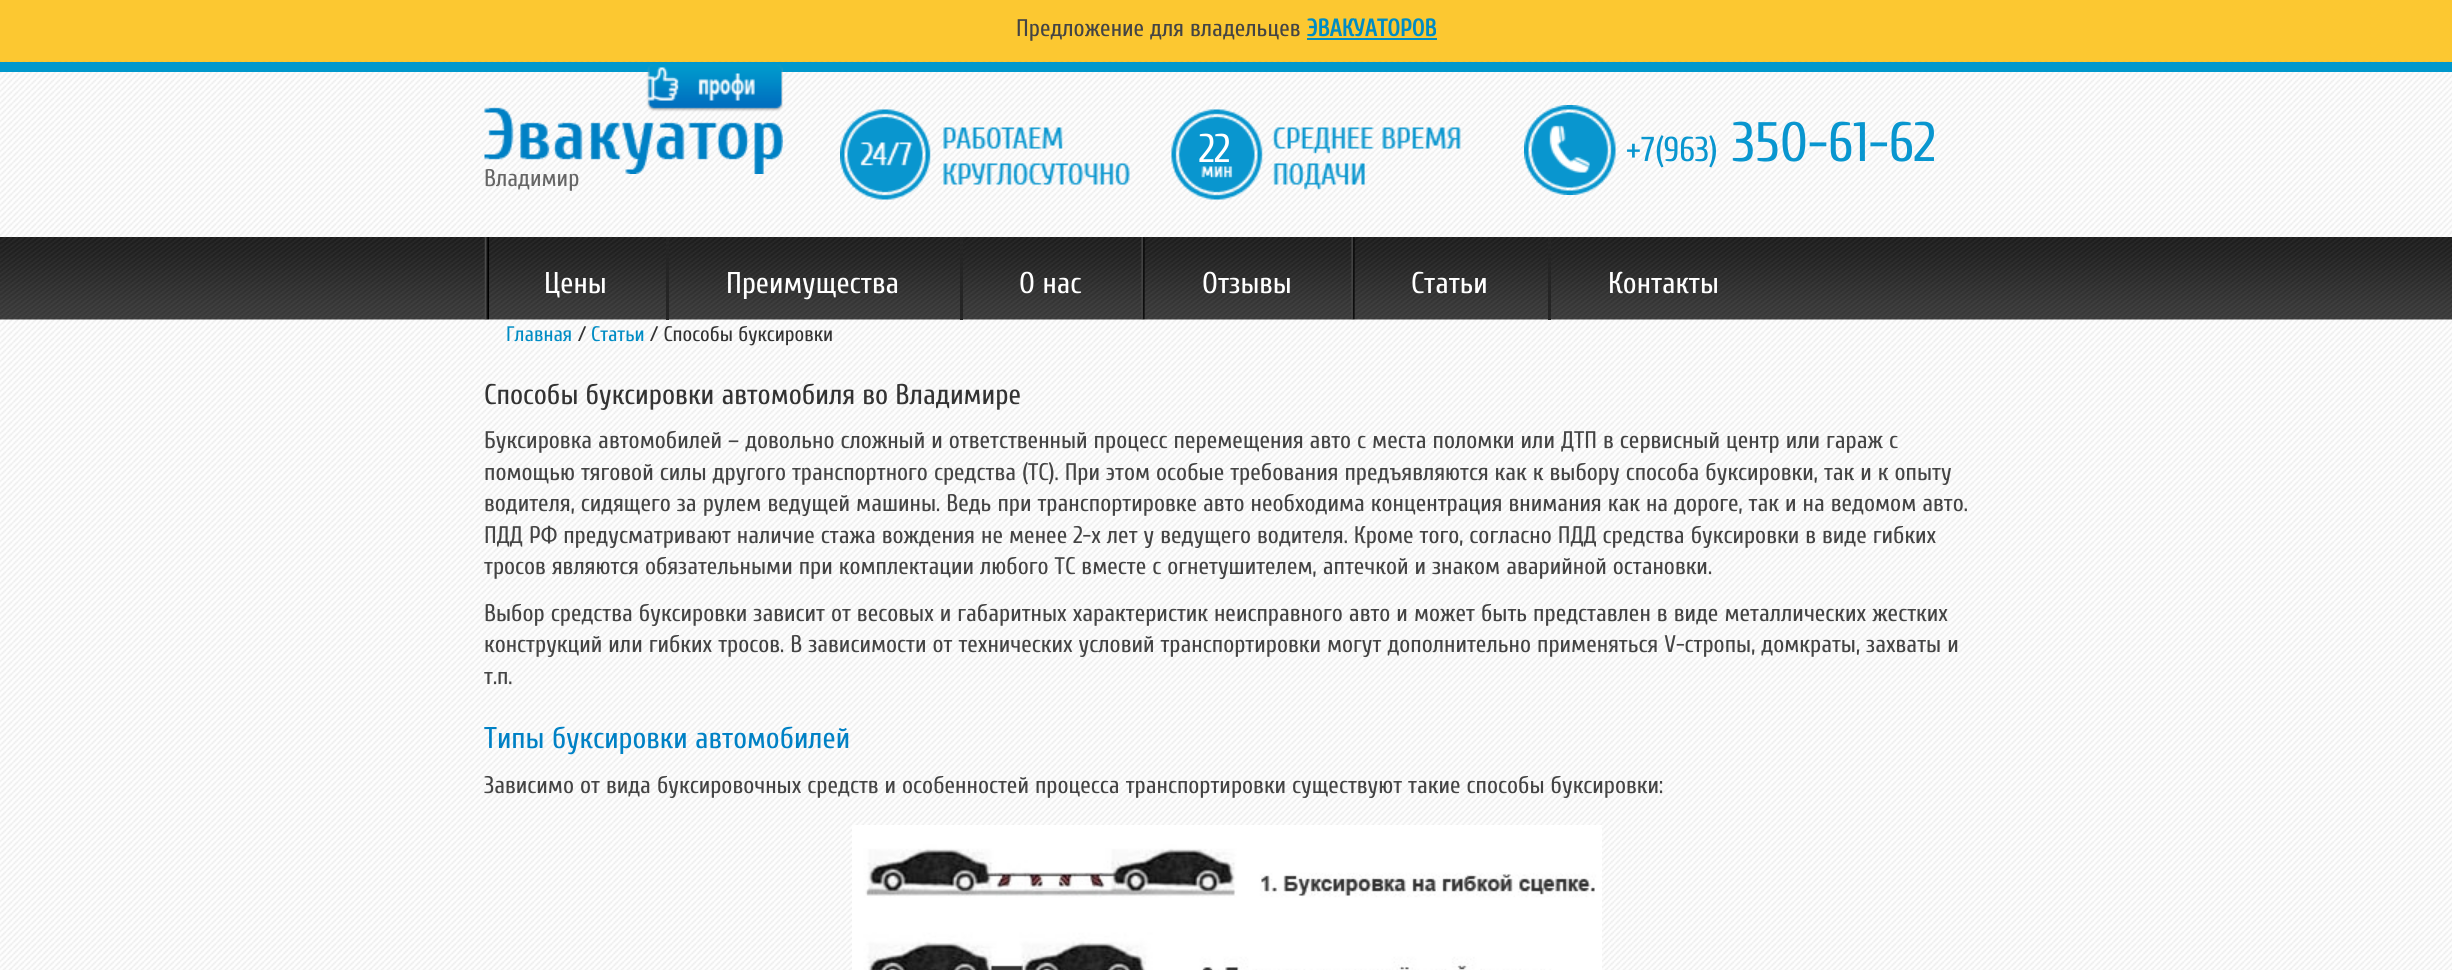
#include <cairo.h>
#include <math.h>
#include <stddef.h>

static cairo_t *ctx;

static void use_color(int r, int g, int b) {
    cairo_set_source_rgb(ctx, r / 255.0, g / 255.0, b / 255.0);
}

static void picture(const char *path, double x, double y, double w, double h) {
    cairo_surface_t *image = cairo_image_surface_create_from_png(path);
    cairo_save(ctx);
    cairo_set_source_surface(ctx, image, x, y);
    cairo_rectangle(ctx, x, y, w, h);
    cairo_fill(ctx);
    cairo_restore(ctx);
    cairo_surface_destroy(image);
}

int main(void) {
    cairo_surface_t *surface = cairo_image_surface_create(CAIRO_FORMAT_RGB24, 2452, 970);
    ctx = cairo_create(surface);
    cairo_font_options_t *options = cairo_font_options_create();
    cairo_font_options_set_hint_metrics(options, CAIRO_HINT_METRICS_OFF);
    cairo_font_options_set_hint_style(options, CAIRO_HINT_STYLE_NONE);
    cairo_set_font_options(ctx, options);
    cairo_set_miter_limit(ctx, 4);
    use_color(255, 255, 255);
    cairo_paint(ctx);
    picture("img1.png", 0, 319, 2452, 651);
    use_color(252, 200, 49);
    cairo_rectangle(ctx, 0, 0, 2452, 62);
    cairo_fill(ctx);
    cairo_select_font_face(ctx, "Cuprum", CAIRO_FONT_SLANT_NORMAL, CAIRO_FONT_WEIGHT_NORMAL);
    cairo_set_font_size(ctx, 24);
    use_color(68, 68, 68);
    cairo_move_to(ctx, 1016, 36);
    cairo_show_text(ctx, "Предложение для владельцев");
    cairo_select_font_face(ctx, "Cuprum", CAIRO_FONT_SLANT_NORMAL, CAIRO_FONT_WEIGHT_BOLD);
    use_color(0, 140, 196);
    cairo_move_to(ctx, 1307, 36);
    cairo_show_text(ctx, "ЭВАКУАТОРОВ");
    cairo_rectangle(ctx, 1307, 38, 130, 2);
    cairo_fill(ctx);
    picture("img2.png", 0, 61, 2452, 176);
    use_color(0, 152, 204);
    cairo_rectangle(ctx, 0, 62, 2452, 10);
    cairo_fill(ctx);
    cairo_select_font_face(ctx, "Cuprum", CAIRO_FONT_SLANT_NORMAL, CAIRO_FONT_WEIGHT_NORMAL);
    use_color(102, 102, 102);
    cairo_move_to(ctx, 484, 186);
    cairo_show_text(ctx, "Владимир");
    picture("img3.png", 484, 64, 299, 110);
    picture("img4.png", 840, 109, 290, 91);
    picture("img5.png", 1171, 109, 290, 91);
    cairo_set_font_size(ctx, 40);
    use_color(255, 255, 255);
    cairo_move_to(ctx, 1199, 162);
    cairo_show_text(ctx, "22");
    picture("img6.png", 1524, 105, 92, 90);
    cairo_set_font_size(ctx, 34.5);
    use_color(9, 150, 207);
    cairo_move_to(ctx, 1626, 161);
    cairo_show_text(ctx, "+7(963)");
    cairo_set_font_size(ctx, 55.5);
    cairo_move_to(ctx, 1732, 161);
    cairo_show_text(ctx, "350-61-62");
    picture("img7.png", 0, 237, 2452, 83);
    picture("img8.png", 484, 237, 5, 83);
    cairo_set_font_size(ctx, 30);
    use_color(255, 255, 255);
    cairo_move_to(ctx, 544, 293);
    cairo_show_text(ctx, "Цены");
    use_color(37, 37, 37);
    cairo_rectangle(ctx, 666, 237, 3, 83);
    cairo_fill(ctx);
    use_color(255, 255, 255);
    cairo_move_to(ctx, 726, 293);
    cairo_show_text(ctx, "Преимущества");
    use_color(37, 37, 37);
    cairo_rectangle(ctx, 960, 237, 3, 83);
    cairo_fill(ctx);
    use_color(255, 255, 255);
    cairo_move_to(ctx, 1019, 293);
    cairo_show_text(ctx, "О нас");
    picture("img9.png", 1141, 237, 4, 83);
    cairo_move_to(ctx, 1202, 293);
    cairo_show_text(ctx, "Отзывы");
    picture("img10.png", 1351, 237, 4, 83);
    cairo_move_to(ctx, 1411, 293);
    cairo_show_text(ctx, "Статьи");
    use_color(37, 37, 37);
    cairo_rectangle(ctx, 1548, 237, 3, 83);
    cairo_fill(ctx);
    use_color(255, 255, 255);
    cairo_move_to(ctx, 1608, 293);
    cairo_show_text(ctx, "Контакты");
    cairo_set_font_size(ctx, 21);
    use_color(0, 140, 196);
    cairo_move_to(ctx, 506, 341);
    cairo_show_text(ctx, "Главная");
    use_color(51, 51, 51);
    cairo_move_to(ctx, 578, 341);
    cairo_show_text(ctx, "/");
    use_color(0, 140, 196);
    cairo_move_to(ctx, 591, 341);
    cairo_show_text(ctx, "Статьи");
    use_color(51, 51, 51);
    cairo_move_to(ctx, 650, 341);
    cairo_show_text(ctx, "/ Способы буксировки");
    cairo_set_font_size(ctx, 28.5);
    cairo_move_to(ctx, 484, 404);
    cairo_show_text(ctx, "Способы буксировки автомобиля во Владимире");
    cairo_set_font_size(ctx, 24);
    use_color(68, 68, 68);
    cairo_move_to(ctx, 484, 448);
    cairo_show_text(ctx, "Буксировка автомобилей – довольно сложный и ответственный процесс перемещения авто с места поломки или ДТП в сервисный центр или гараж с");
    cairo_move_to(ctx, 484, 480);
    cairo_show_text(ctx, "помощью тяговой силы другого транспортного средства (ТС). При этом особые требования предъявляются как к выбору способа буксировки, так и к опыту");
    cairo_move_to(ctx, 484, 511);
    cairo_show_text(ctx, "водителя, сидящего за рулем ведущей машины. Ведь при транспортировке авто необходима концентрация внимания как на дороге, так и на ведомом авто.");
    cairo_move_to(ctx, 484, 543);
    cairo_show_text(ctx, "ПДД РФ предусматривают наличие стажа вождения не менее 2-х лет у ведущего водителя. Кроме того, согласно ПДД средства буксировки в виде гибких");
    cairo_move_to(ctx, 484, 574);
    cairo_show_text(ctx, "тросов являются обязательными при комплектации любого ТС вместе с огнетушителем, аптечкой и знаком аварийной остановки.");
    cairo_move_to(ctx, 484, 621);
    cairo_show_text(ctx, "Выбор средства буксировки зависит от весовых и габаритных характеристик неисправного авто и может быть представлен в виде металлических жестких");
    cairo_move_to(ctx, 484, 652);
    cairo_show_text(ctx, "конструкций или гибких тросов. В зависимости от технических условий транспортировки могут дополнительно применяться V-стропы, домкраты, захваты и");
    cairo_move_to(ctx, 484, 684);
    cairo_show_text(ctx, "т.п.");
    cairo_set_font_size(ctx, 30);
    use_color(0, 129, 197);
    cairo_move_to(ctx, 484, 748);
    cairo_show_text(ctx, "Типы буксировки автомобилей");
    cairo_set_font_size(ctx, 24);
    use_color(68, 68, 68);
    cairo_move_to(ctx, 484, 793);
    cairo_show_text(ctx, "Зависимо от вида буксировочных средств и особенностей процесса транспортировки существуют такие способы буксировки:");
    picture("img11.png", 852, 825, 750, 145);
    cairo_surface_write_to_png(surface, "result.png");
    cairo_font_options_destroy(options);
    cairo_destroy(ctx);
    cairo_surface_destroy(surface);
    return 0;
}
